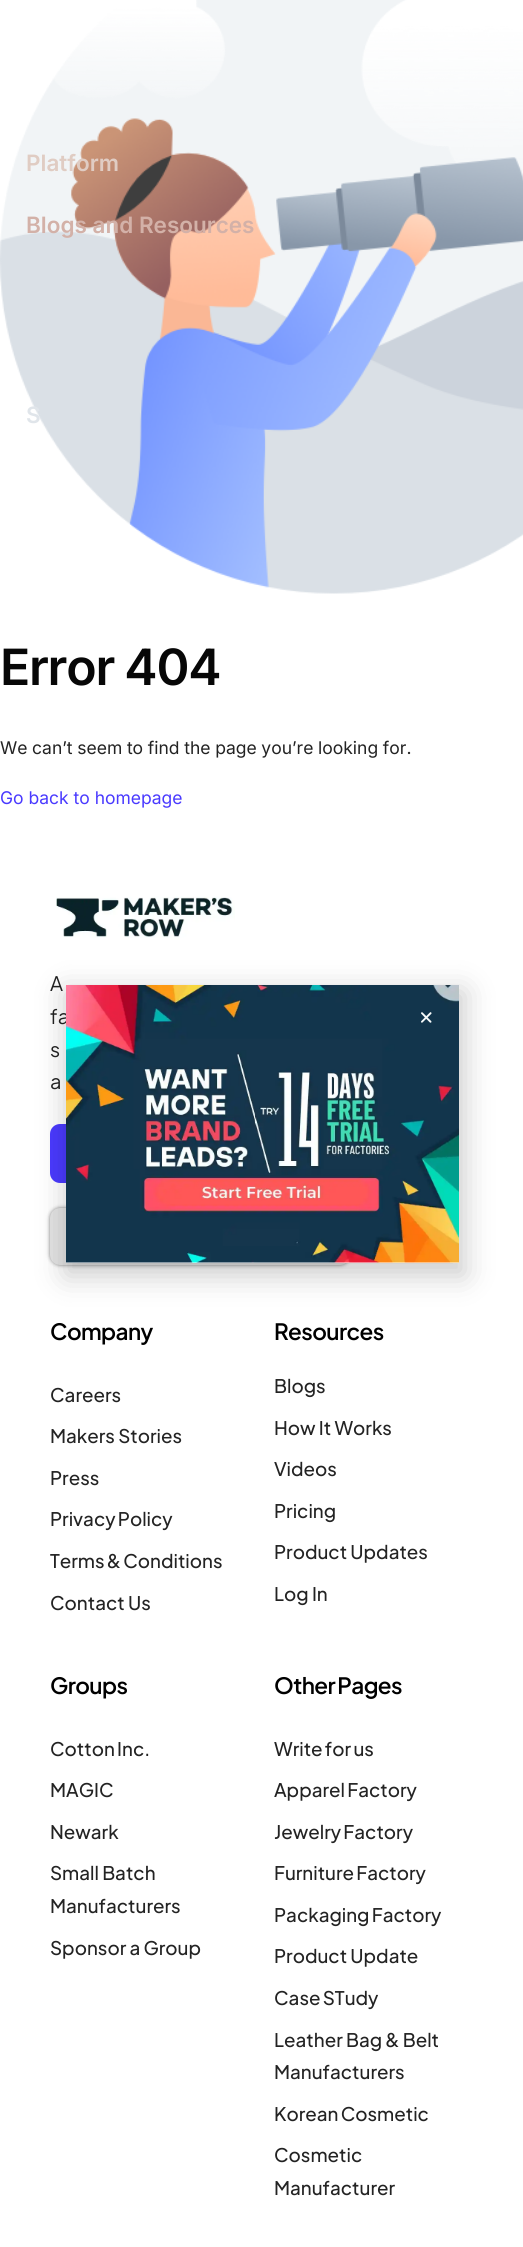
#include <cairo.h>
#include <math.h>
#include <stddef.h>

static cairo_t *ctx;

static void use_color(int r, int g, int b) {
    cairo_set_source_rgb(ctx, r / 255.0, g / 255.0, b / 255.0);
}

static void spaced_text(double x, double y, const char *s, double letter, double word) {
    cairo_move_to(ctx, x, y);
    while (*s) {
        char ch[5] = {0};
        int n = 0;
        do ch[n++] = *s++; while ((*s & 0xC0) == 0x80);
        cairo_show_text(ctx, ch);
        cairo_rel_move_to(ctx, letter + word * (*ch == ' '), 0);
    }
}

static void round_rect(double x, double y, double w, double h, double r) {
    cairo_new_sub_path(ctx);
    cairo_arc(ctx, x + w - r, y + h - r, r, 0, M_PI / 2);
    cairo_arc(ctx, x + r, y + h - r, r, M_PI / 2, M_PI);
    cairo_arc(ctx, x + r, y + r, r, M_PI, 1.5 * M_PI);
    cairo_arc(ctx, x + w - r, y + r, r, 1.5 * M_PI, 2 * M_PI);
    cairo_close_path(ctx);
}

static void shadow(double x, double y, double w, double h, double r, double blur, double alpha) {
    cairo_push_group_with_content(ctx, CAIRO_CONTENT_ALPHA);
    cairo_set_operator(ctx, CAIRO_OPERATOR_SOURCE);
    for (int i = 15; i >= -15 && fmin(w, h) + blur * i / 3 > 0; i -= 2) {
        double e = blur * i / 6;
        cairo_set_source_rgba(ctx, 0, 0, 0, alpha * erfc((i - 1) / 8.5) / 2);
        round_rect(x - e, y - e, w + 2 * e, h + 2 * e, fmax(0, fmin(r + e + blur * .6, fmin(w, h) / 2 + e)));
        cairo_fill(ctx);
    }
    cairo_pattern_t *soft = cairo_pop_group(ctx);
    cairo_mask(ctx, soft);
    cairo_pattern_destroy(soft);
}

static void picture(const char *path, double x, double y, double w, double h) {
    cairo_surface_t *image = cairo_image_surface_create_from_png(path);
    cairo_save(ctx);
    cairo_set_source_surface(ctx, image, x, y);
    cairo_rectangle(ctx, x, y, w, h);
    cairo_fill(ctx);
    cairo_restore(ctx);
    cairo_surface_destroy(image);
}

int main(void) {
    cairo_surface_t *surface = cairo_image_surface_create(CAIRO_FORMAT_RGB24, 523, 2247);
    ctx = cairo_create(surface);
    cairo_font_options_t *options = cairo_font_options_create();
    cairo_font_options_set_hint_metrics(options, CAIRO_HINT_METRICS_OFF);
    cairo_font_options_set_hint_style(options, CAIRO_HINT_STYLE_NONE);
    cairo_set_font_options(ctx, options);
    cairo_set_miter_limit(ctx, 4);
    use_color(255, 255, 255);
    cairo_paint(ctx);
    picture("img1.png", 0, 0, 523, 594);
    cairo_select_font_face(ctx, "Inter SemiBold", CAIRO_FONT_SLANT_NORMAL, CAIRO_FONT_WEIGHT_NORMAL);
    cairo_set_font_size(ctx, 22.5);
    use_color(224, 204, 195);
    cairo_move_to(ctx, 26, 171);
    cairo_show_text(ctx, "Platform");
    use_color(211, 177, 168);
    cairo_move_to(ctx, 26, 233);
    cairo_show_text(ctx, "Blogs and Resources");
    use_color(224, 229, 234);
    cairo_move_to(ctx, 26, 423);
    cairo_show_text(ctx, "S");
    cairo_set_font_size(ctx, 50);
    use_color(7, 7, 7);
    spaced_text(0, 685, "Error 404", -1.25, -1);
    cairo_select_font_face(ctx, "Inter", CAIRO_FONT_SLANT_NORMAL, CAIRO_FONT_WEIGHT_NORMAL);
    cairo_set_font_size(ctx, 17.5);
    use_color(35, 35, 35);
    spaced_text(0, 754, "We can’t seem to find the page you’re looking for.", 0, -0.25);
    use_color(74, 58, 255);
    cairo_move_to(ctx, 0, 804);
    cairo_show_text(ctx, "Go back to homepage");
    picture("img2.png", 56, 896, 179, 42);
    cairo_select_font_face(ctx, "Plus Jakarta Sans", CAIRO_FONT_SLANT_NORMAL, CAIRO_FONT_WEIGHT_NORMAL);
    cairo_set_font_size(ctx, 20);
    use_color(35, 35, 35);
    cairo_move_to(ctx, 50, 991);
    cairo_show_text(ctx, "A");
    spaced_text(50, 1024, "fa", 0, -1);
    cairo_move_to(ctx, 50, 1057);
    cairo_show_text(ctx, "s");
    cairo_move_to(ctx, 50, 1089);
    cairo_show_text(ctx, "a");
    use_color(74, 58, 255);
    round_rect(50, 1124, 304, 59, 10);
    cairo_fill(ctx);
    use_color(0, 0, 0);
    shadow(50, 1208, 300, 57, 10, 2, 0.5);
    use_color(227, 227, 227);
    round_rect(50, 1208, 300, 57, 10);
    cairo_fill(ctx);
    cairo_select_font_face(ctx, "Plus Jakarta Sans SemiBold", CAIRO_FONT_SLANT_NORMAL, CAIRO_FONT_WEIGHT_NORMAL);
    cairo_set_font_size(ctx, 22.5);
    use_color(0, 0, 0);
    spaced_text(50, 1340, "Company", -0.6, 0);
    cairo_select_font_face(ctx, "Plus Jakarta Sans Medium", CAIRO_FONT_SLANT_NORMAL, CAIRO_FONT_WEIGHT_NORMAL);
    cairo_set_font_size(ctx, 18.75);
    use_color(35, 35, 35);
    cairo_move_to(ctx, 50, 1402);
    cairo_show_text(ctx, "Careers");
    cairo_move_to(ctx, 50, 1443);
    cairo_show_text(ctx, "Makers Stories");
    cairo_move_to(ctx, 50, 1485);
    cairo_show_text(ctx, "Press");
    spaced_text(50, 1526, "Privacy Policy", 0, -1);
    spaced_text(50, 1568, "Terms & Conditions", 0, -1);
    cairo_move_to(ctx, 50, 1610);
    cairo_show_text(ctx, "Contact Us");
    cairo_select_font_face(ctx, "Plus Jakarta Sans SemiBold", CAIRO_FONT_SLANT_NORMAL, CAIRO_FONT_WEIGHT_NORMAL);
    cairo_set_font_size(ctx, 22.5);
    use_color(0, 0, 0);
    spaced_text(274, 1340, "Resources", -0.6, 0);
    cairo_select_font_face(ctx, "Plus Jakarta Sans Medium", CAIRO_FONT_SLANT_NORMAL, CAIRO_FONT_WEIGHT_NORMAL);
    cairo_set_font_size(ctx, 18.75);
    use_color(35, 35, 35);
    cairo_move_to(ctx, 274, 1393);
    cairo_show_text(ctx, "Blogs");
    cairo_move_to(ctx, 274, 1435);
    cairo_show_text(ctx, "How It Works");
    cairo_move_to(ctx, 274, 1476);
    cairo_show_text(ctx, "Videos");
    cairo_move_to(ctx, 274, 1518);
    cairo_show_text(ctx, "Pricing");
    cairo_move_to(ctx, 274, 1559);
    cairo_show_text(ctx, "Product Updates");
    cairo_move_to(ctx, 274, 1601);
    cairo_show_text(ctx, "Log In");
    cairo_select_font_face(ctx, "Plus Jakarta Sans SemiBold", CAIRO_FONT_SLANT_NORMAL, CAIRO_FONT_WEIGHT_NORMAL);
    cairo_set_font_size(ctx, 22.5);
    use_color(0, 0, 0);
    spaced_text(50, 1694, "Groups", -0.6, 0);
    cairo_select_font_face(ctx, "Plus Jakarta Sans Medium", CAIRO_FONT_SLANT_NORMAL, CAIRO_FONT_WEIGHT_NORMAL);
    cairo_set_font_size(ctx, 18.75);
    use_color(35, 35, 35);
    spaced_text(50, 1756, "Cotton Inc.", 0, -1);
    cairo_move_to(ctx, 50, 1797);
    cairo_show_text(ctx, "MAGIC");
    cairo_move_to(ctx, 50, 1839);
    cairo_show_text(ctx, "Newark");
    cairo_move_to(ctx, 50, 1880);
    cairo_show_text(ctx, "Small Batch");
    cairo_move_to(ctx, 50, 1913);
    cairo_show_text(ctx, "Manufacturers");
    cairo_move_to(ctx, 50, 1955);
    cairo_show_text(ctx, "Sponsor a Group");
    cairo_select_font_face(ctx, "Plus Jakarta Sans SemiBold", CAIRO_FONT_SLANT_NORMAL, CAIRO_FONT_WEIGHT_NORMAL);
    cairo_set_font_size(ctx, 22.5);
    use_color(0, 0, 0);
    spaced_text(274, 1694, "Other Pages", -0.6, -1);
    cairo_select_font_face(ctx, "Plus Jakarta Sans Medium", CAIRO_FONT_SLANT_NORMAL, CAIRO_FONT_WEIGHT_NORMAL);
    cairo_set_font_size(ctx, 18.75);
    use_color(35, 35, 35);
    spaced_text(274, 1756, "Write for us", 0, -1);
    spaced_text(274, 1797, "Apparel Factory", 0, -1);
    spaced_text(274, 1839, "Jewelry Factory", 0, -1);
    spaced_text(274, 1880, "Furniture Factory", 0, -1);
    spaced_text(274, 1922, "Packaging Factory", 0, -1);
    cairo_move_to(ctx, 274, 1963);
    cairo_show_text(ctx, "Product Update");
    spaced_text(274, 2005, "Case STudy", 0, -1);
    cairo_move_to(ctx, 274, 2047);
    cairo_show_text(ctx, "Leather Bag & Belt");
    cairo_move_to(ctx, 274, 2079);
    cairo_show_text(ctx, "Manufacturers");
    spaced_text(274, 2121, "Korean Cosmetic", 0, -1);
    cairo_move_to(ctx, 274, 2162);
    cairo_show_text(ctx, "Cosmetic");
    cairo_move_to(ctx, 274, 2195);
    cairo_show_text(ctx, "Manufacturer");
    use_color(0, 0, 0);
    shadow(65, 991, 400, 285, 0, 14.5, 0.2);
    use_color(255, 255, 255);
    cairo_rectangle(ctx, 66, 1262, 393, 1);
    cairo_fill(ctx);
    picture("img3.png", 66, 985, 393, 278);
    picture("img4.png", 421, 1012, 11, 11);
    cairo_surface_write_to_png(surface, "result.png");
    cairo_font_options_destroy(options);
    cairo_destroy(ctx);
    cairo_surface_destroy(surface);
    return 0;
}
